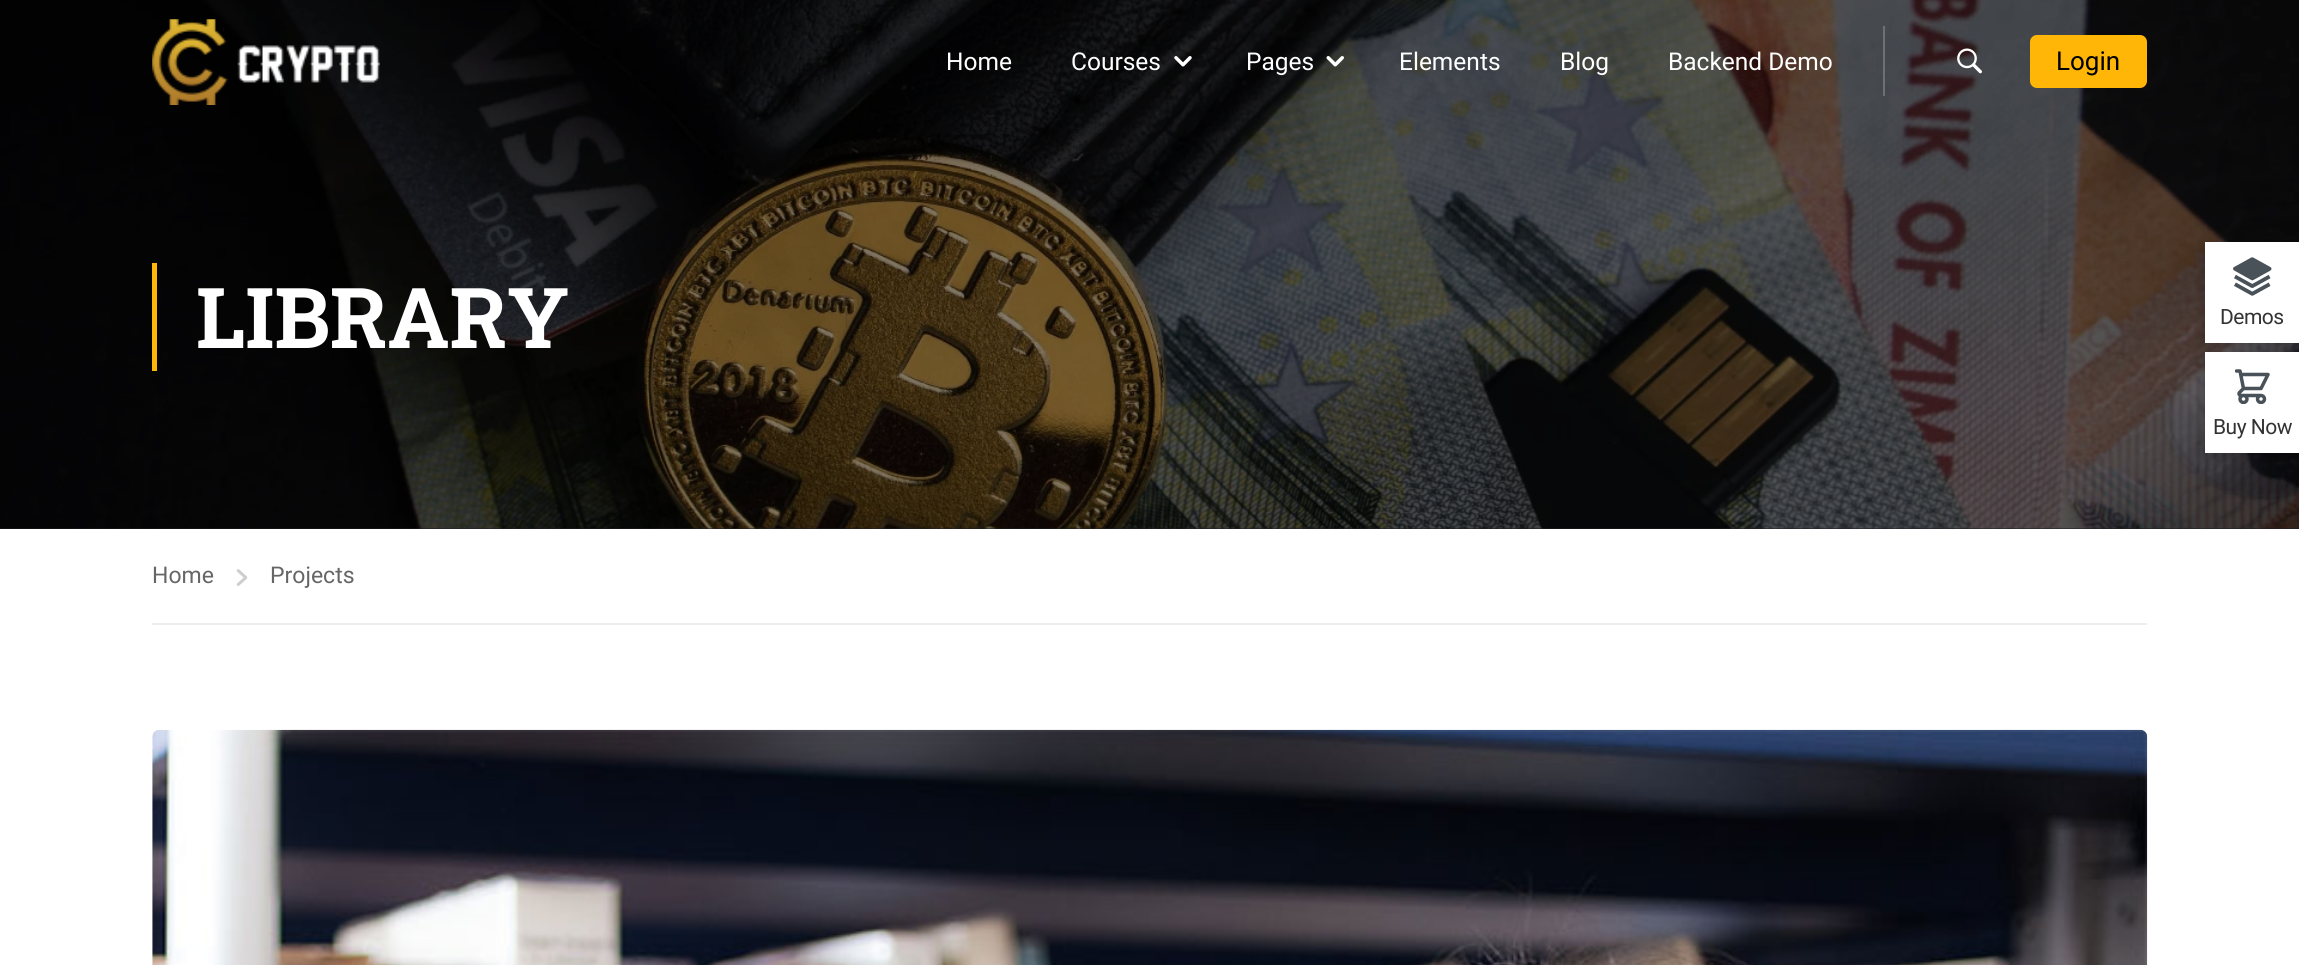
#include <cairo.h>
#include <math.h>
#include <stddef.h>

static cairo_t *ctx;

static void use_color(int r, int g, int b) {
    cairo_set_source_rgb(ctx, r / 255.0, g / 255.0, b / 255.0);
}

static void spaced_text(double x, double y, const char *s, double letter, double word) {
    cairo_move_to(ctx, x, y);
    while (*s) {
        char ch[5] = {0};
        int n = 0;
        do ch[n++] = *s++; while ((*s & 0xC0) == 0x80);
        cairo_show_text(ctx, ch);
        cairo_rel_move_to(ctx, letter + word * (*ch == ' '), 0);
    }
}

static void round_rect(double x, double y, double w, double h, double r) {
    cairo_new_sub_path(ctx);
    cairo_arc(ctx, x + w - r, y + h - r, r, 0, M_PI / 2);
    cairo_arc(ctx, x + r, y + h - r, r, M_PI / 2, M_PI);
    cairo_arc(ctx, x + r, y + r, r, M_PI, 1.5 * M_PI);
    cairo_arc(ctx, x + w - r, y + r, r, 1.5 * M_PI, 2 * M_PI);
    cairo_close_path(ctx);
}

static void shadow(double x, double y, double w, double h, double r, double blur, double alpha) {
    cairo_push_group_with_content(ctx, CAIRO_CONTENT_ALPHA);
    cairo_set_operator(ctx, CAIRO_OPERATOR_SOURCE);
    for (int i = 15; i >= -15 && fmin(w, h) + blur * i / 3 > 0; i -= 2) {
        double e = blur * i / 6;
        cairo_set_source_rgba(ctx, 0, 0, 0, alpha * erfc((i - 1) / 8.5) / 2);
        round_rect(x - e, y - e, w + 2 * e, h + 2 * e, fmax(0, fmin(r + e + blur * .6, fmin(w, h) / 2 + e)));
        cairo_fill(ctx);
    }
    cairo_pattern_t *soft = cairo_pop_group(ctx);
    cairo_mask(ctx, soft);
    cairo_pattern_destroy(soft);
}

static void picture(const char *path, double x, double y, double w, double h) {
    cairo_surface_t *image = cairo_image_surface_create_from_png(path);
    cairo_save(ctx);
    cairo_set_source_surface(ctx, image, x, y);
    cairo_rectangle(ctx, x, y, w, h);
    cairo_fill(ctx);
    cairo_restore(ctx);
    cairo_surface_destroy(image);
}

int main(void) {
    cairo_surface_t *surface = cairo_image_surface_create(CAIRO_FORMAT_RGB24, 2299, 965);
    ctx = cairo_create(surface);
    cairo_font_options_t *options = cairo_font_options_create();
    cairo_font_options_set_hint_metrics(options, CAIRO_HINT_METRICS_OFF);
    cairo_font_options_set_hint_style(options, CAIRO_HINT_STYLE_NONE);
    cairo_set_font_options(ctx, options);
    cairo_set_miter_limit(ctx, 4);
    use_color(255, 255, 255);
    cairo_paint(ctx);
    use_color(28, 31, 34);
    cairo_rectangle(ctx, 0, 528, 2299, 1);
    cairo_fill(ctx);
    picture("img5.png", 0, 0, 2299, 529);
    picture("img1.png", 152, 19, 228, 86);
    cairo_select_font_face(ctx, "Roboto", CAIRO_FONT_SLANT_NORMAL, CAIRO_FONT_WEIGHT_NORMAL);
    cairo_set_font_size(ctx, 24.5);
    use_color(255, 255, 255);
    cairo_move_to(ctx, 946, 70);
    cairo_show_text(ctx, "Home");
    cairo_move_to(ctx, 1071, 70);
    cairo_show_text(ctx, "Courses");
    picture("img2.png", 1174, 56, 18, 11);
    cairo_move_to(ctx, 1246, 70);
    cairo_show_text(ctx, "Pages");
    picture("img3.png", 1326, 56, 18, 11);
    cairo_move_to(ctx, 1399, 70);
    cairo_show_text(ctx, "Elements");
    cairo_move_to(ctx, 1560, 70);
    cairo_show_text(ctx, "Blog");
    cairo_move_to(ctx, 1668, 70);
    cairo_show_text(ctx, "Backend Demo");
    cairo_set_source_rgba(ctx, 1, 1, 1, 0.22);
    cairo_rectangle(ctx, 1883, 26, 2, 70);
    cairo_fill(ctx);
    picture("img4.png", 1957, 48, 25, 26);
    use_color(255, 182, 6);
    round_rect(2030, 35, 117, 53, 7);
    cairo_fill(ctx);
    cairo_set_font_size(ctx, 26);
    use_color(0, 0, 0);
    cairo_move_to(ctx, 2056, 70);
    cairo_show_text(ctx, "Login");
    use_color(255, 182, 6);
    cairo_rectangle(ctx, 152, 263, 5, 108);
    cairo_fill(ctx);
    cairo_select_font_face(ctx, "Roboto Slab", CAIRO_FONT_SLANT_NORMAL, CAIRO_FONT_WEIGHT_BOLD);
    cairo_set_font_size(ctx, 84);
    use_color(255, 255, 255);
    cairo_move_to(ctx, 196, 348);
    cairo_show_text(ctx, "LIBRARY");
    use_color(238, 238, 238);
    cairo_rectangle(ctx, 152, 623, 1995, 2);
    cairo_fill(ctx);
    cairo_select_font_face(ctx, "Roboto", CAIRO_FONT_SLANT_NORMAL, CAIRO_FONT_WEIGHT_NORMAL);
    cairo_set_font_size(ctx, 23);
    use_color(102, 102, 102);
    cairo_move_to(ctx, 152, 583);
    cairo_show_text(ctx, "Home");
    picture("img6.png", 236, 569, 12, 17);
    cairo_move_to(ctx, 270, 583);
    cairo_show_text(ctx, "Projects");
    picture("img7.png", 152, 729, 1996, 236);
    use_color(0, 0, 0);
    shadow(2202, 247, 91, 98, 0, 5, 0.14);
    use_color(255, 255, 255);
    cairo_rectangle(ctx, 2205, 242, 94, 101);
    cairo_fill(ctx);
    picture("img8.png", 2233, 257, 39, 39);
    cairo_set_font_size(ctx, 21);
    use_color(51, 51, 51);
    spaced_text(2220, 324, "Demos", -0.5, 0);
    use_color(0, 0, 0);
    shadow(2202, 357, 91, 98, 0, 5, 0.14);
    use_color(255, 255, 255);
    cairo_rectangle(ctx, 2205, 352, 94, 101);
    cairo_fill(ctx);
    picture("img9.png", 2235, 369, 35, 35);
    use_color(51, 51, 51);
    spaced_text(2213, 434, "Buy Now", -0.5, 0);
    cairo_surface_write_to_png(surface, "result.png");
    cairo_font_options_destroy(options);
    cairo_destroy(ctx);
    cairo_surface_destroy(surface);
    return 0;
}
